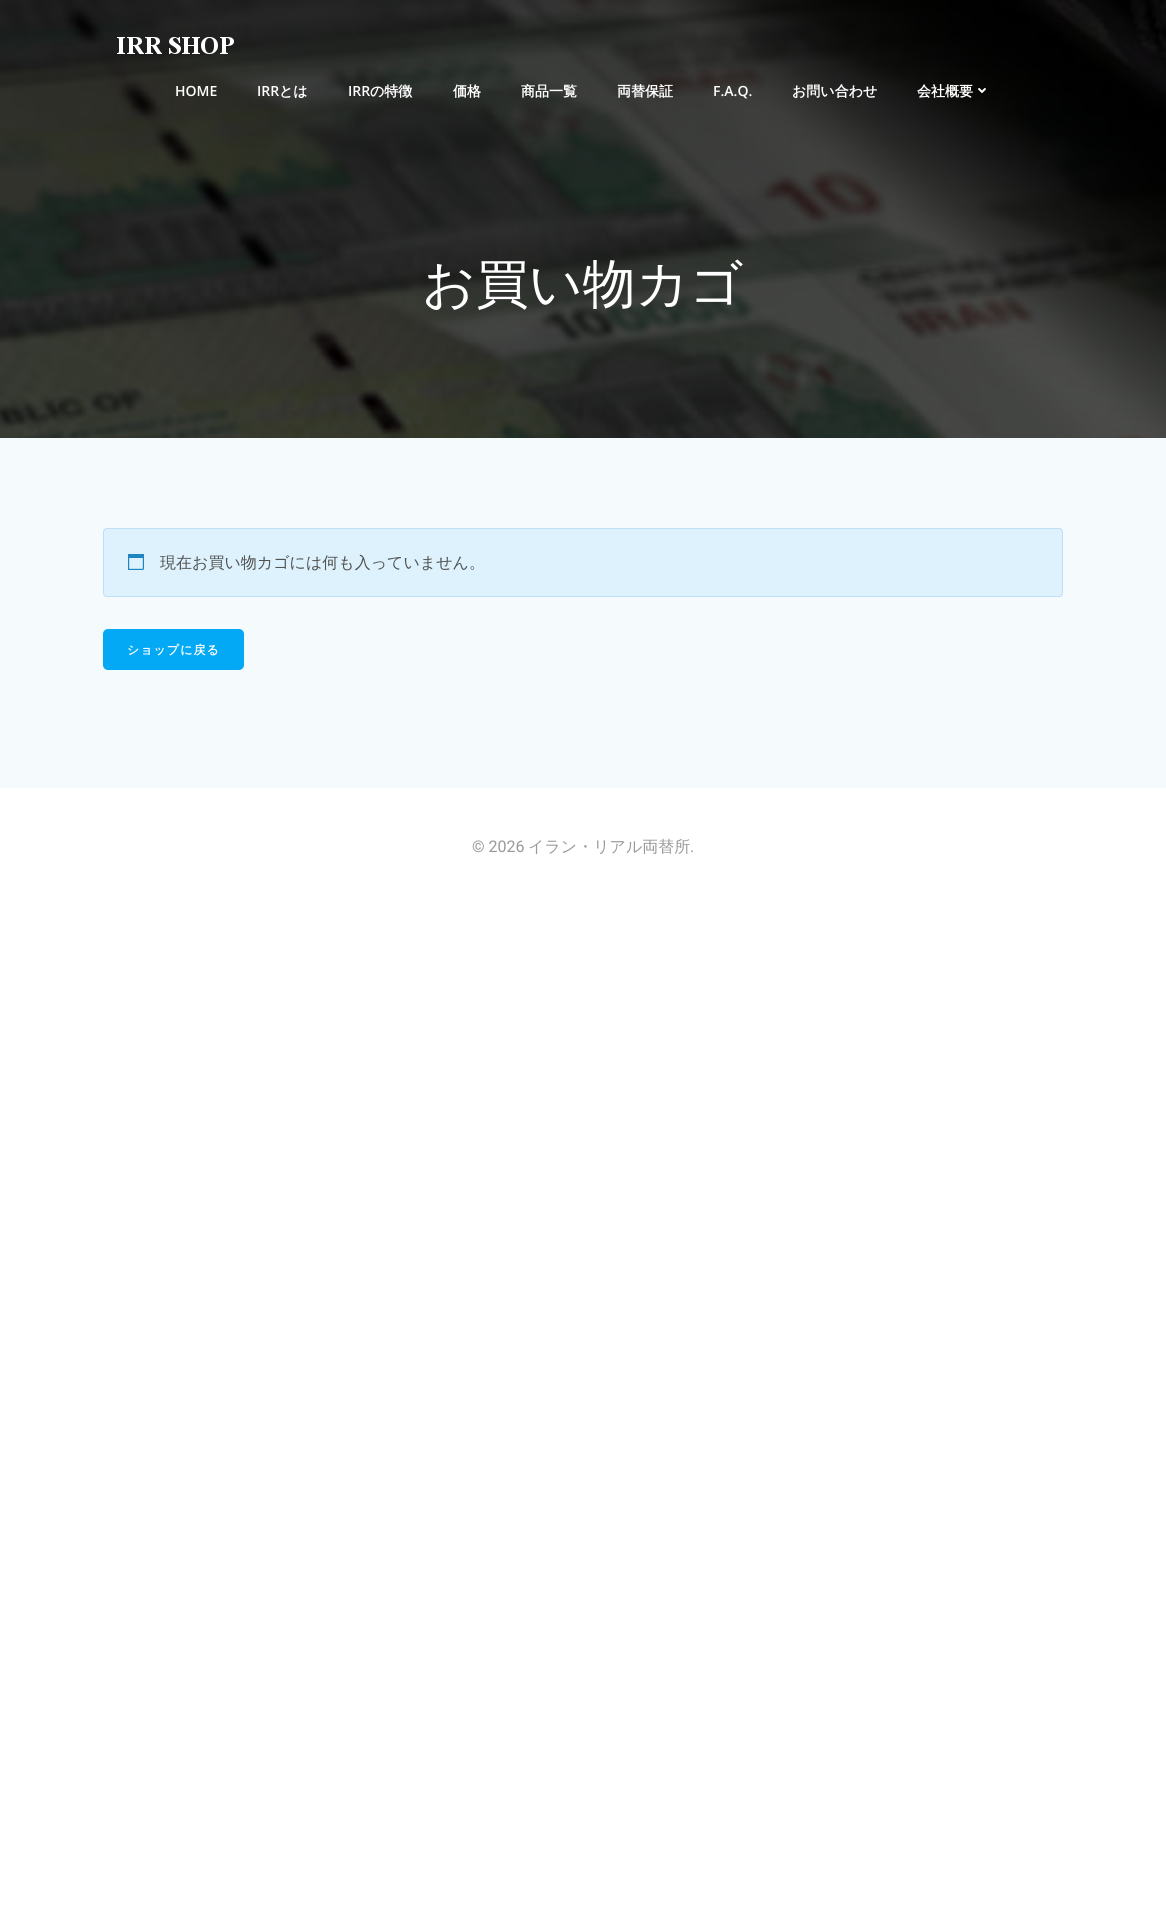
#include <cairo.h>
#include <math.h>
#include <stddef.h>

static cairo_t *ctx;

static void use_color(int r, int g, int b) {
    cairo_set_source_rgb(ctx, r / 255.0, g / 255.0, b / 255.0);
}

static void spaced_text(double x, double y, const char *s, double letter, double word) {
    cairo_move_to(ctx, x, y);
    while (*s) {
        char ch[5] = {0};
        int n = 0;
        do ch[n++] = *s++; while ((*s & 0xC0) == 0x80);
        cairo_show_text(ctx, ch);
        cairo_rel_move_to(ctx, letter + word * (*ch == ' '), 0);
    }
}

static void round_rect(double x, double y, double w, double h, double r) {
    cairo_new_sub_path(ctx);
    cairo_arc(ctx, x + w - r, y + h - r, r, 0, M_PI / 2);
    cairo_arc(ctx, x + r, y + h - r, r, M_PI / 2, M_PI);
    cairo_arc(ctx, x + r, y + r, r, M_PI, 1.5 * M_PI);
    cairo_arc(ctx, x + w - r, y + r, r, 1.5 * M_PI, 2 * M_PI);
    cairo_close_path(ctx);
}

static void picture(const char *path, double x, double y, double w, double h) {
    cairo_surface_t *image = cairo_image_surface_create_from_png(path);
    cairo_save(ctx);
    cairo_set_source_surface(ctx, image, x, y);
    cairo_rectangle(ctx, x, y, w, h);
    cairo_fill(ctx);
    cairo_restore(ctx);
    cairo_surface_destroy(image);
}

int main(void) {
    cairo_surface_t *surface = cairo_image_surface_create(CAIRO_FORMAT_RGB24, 1166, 1925);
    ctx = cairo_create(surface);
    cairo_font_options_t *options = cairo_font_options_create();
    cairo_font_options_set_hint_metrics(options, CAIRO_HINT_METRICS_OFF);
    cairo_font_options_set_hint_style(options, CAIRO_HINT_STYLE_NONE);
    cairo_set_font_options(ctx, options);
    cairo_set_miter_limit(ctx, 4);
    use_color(255, 255, 255);
    cairo_paint(ctx);
    picture("img3.png", 0, 0, 1166, 438);
    picture("img1.png", 117, 37, 117, 17);
    cairo_select_font_face(ctx, "Open Sans SemiBold", CAIRO_FONT_SLANT_NORMAL, CAIRO_FONT_WEIGHT_NORMAL);
    cairo_set_font_size(ctx, 14);
    use_color(255, 255, 255);
    cairo_move_to(ctx, 175, 96);
    cairo_show_text(ctx, "HOME");
    cairo_move_to(ctx, 257, 96);
    cairo_show_text(ctx, "IRR");
    cairo_select_font_face(ctx, "WenQuanYi Zen Hei", CAIRO_FONT_SLANT_NORMAL, CAIRO_FONT_WEIGHT_BOLD);
    cairo_move_to(ctx, 279, 96);
    cairo_show_text(ctx, "とは");
    cairo_select_font_face(ctx, "Open Sans SemiBold", CAIRO_FONT_SLANT_NORMAL, CAIRO_FONT_WEIGHT_NORMAL);
    cairo_move_to(ctx, 348, 96);
    cairo_show_text(ctx, "IRR");
    cairo_select_font_face(ctx, "WenQuanYi Zen Hei", CAIRO_FONT_SLANT_NORMAL, CAIRO_FONT_WEIGHT_BOLD);
    cairo_move_to(ctx, 370, 96);
    cairo_show_text(ctx, "の特徴");
    cairo_move_to(ctx, 453, 96);
    cairo_show_text(ctx, "価格");
    cairo_move_to(ctx, 521, 96);
    cairo_show_text(ctx, "商品一覧");
    cairo_move_to(ctx, 617, 96);
    cairo_show_text(ctx, "両替保証");
    cairo_select_font_face(ctx, "Open Sans SemiBold", CAIRO_FONT_SLANT_NORMAL, CAIRO_FONT_WEIGHT_NORMAL);
    cairo_move_to(ctx, 713, 96);
    cairo_show_text(ctx, "F.A.Q.");
    cairo_select_font_face(ctx, "WenQuanYi Zen Hei", CAIRO_FONT_SLANT_NORMAL, CAIRO_FONT_WEIGHT_BOLD);
    cairo_move_to(ctx, 792, 96);
    cairo_show_text(ctx, "お問い合わせ");
    cairo_move_to(ctx, 917, 96);
    cairo_show_text(ctx, "会社概要");
    picture("img2.png", 978, 88, 8, 5);
    cairo_select_font_face(ctx, "WenQuanYi Zen Hei Medium", CAIRO_FONT_SLANT_NORMAL, CAIRO_FONT_WEIGHT_NORMAL);
    cairo_set_font_size(ctx, 52.75);
    cairo_move_to(ctx, 422, 302);
    cairo_show_text(ctx, "お買い物カゴ");
    use_color(245, 250, 253);
    cairo_rectangle(ctx, 0, 438, 1166, 350);
    cairo_fill(ctx);
    use_color(221, 242, 252);
    round_rect(103, 528, 960, 69, 4);
    cairo_fill(ctx);
    round_rect(103.5, 528.5, 959, 68, 3.5);
    cairo_set_source_rgba(ctx, 0.29, 0.565, 0.886, 0.2);
    cairo_set_line_width(ctx, 1);
    cairo_stroke(ctx);
    picture("img4.png", 128, 554, 16, 16);
    cairo_set_font_size(ctx, 16);
    use_color(81, 81, 81);
    cairo_move_to(ctx, 160, 568);
    cairo_show_text(ctx, "現在お買い物カゴには何も入っていません。");
    use_color(3, 169, 244);
    round_rect(103, 629, 141, 41, 5);
    cairo_fill(ctx);
    cairo_select_font_face(ctx, "WenQuanYi Zen Hei", CAIRO_FONT_SLANT_NORMAL, CAIRO_FONT_WEIGHT_BOLD);
    cairo_set_font_size(ctx, 12);
    use_color(255, 255, 255);
    spaced_text(127, 654, "ショップに戻る", 1, 0);
    cairo_select_font_face(ctx, "Roboto", CAIRO_FONT_SLANT_NORMAL, CAIRO_FONT_WEIGHT_NORMAL);
    cairo_set_font_size(ctx, 16);
    use_color(153, 153, 153);
    cairo_move_to(ctx, 472, 852);
    cairo_show_text(ctx, "© 2026");
    cairo_select_font_face(ctx, "WenQuanYi Zen Hei Medium", CAIRO_FONT_SLANT_NORMAL, CAIRO_FONT_WEIGHT_NORMAL);
    cairo_move_to(ctx, 528, 852);
    cairo_show_text(ctx, "イラン・リアル両替所");
    cairo_select_font_face(ctx, "Roboto", CAIRO_FONT_SLANT_NORMAL, CAIRO_FONT_WEIGHT_NORMAL);
    cairo_move_to(ctx, 690, 852);
    cairo_show_text(ctx, ".");
    cairo_surface_write_to_png(surface, "result.png");
    cairo_font_options_destroy(options);
    cairo_destroy(ctx);
    cairo_surface_destroy(surface);
    return 0;
}
